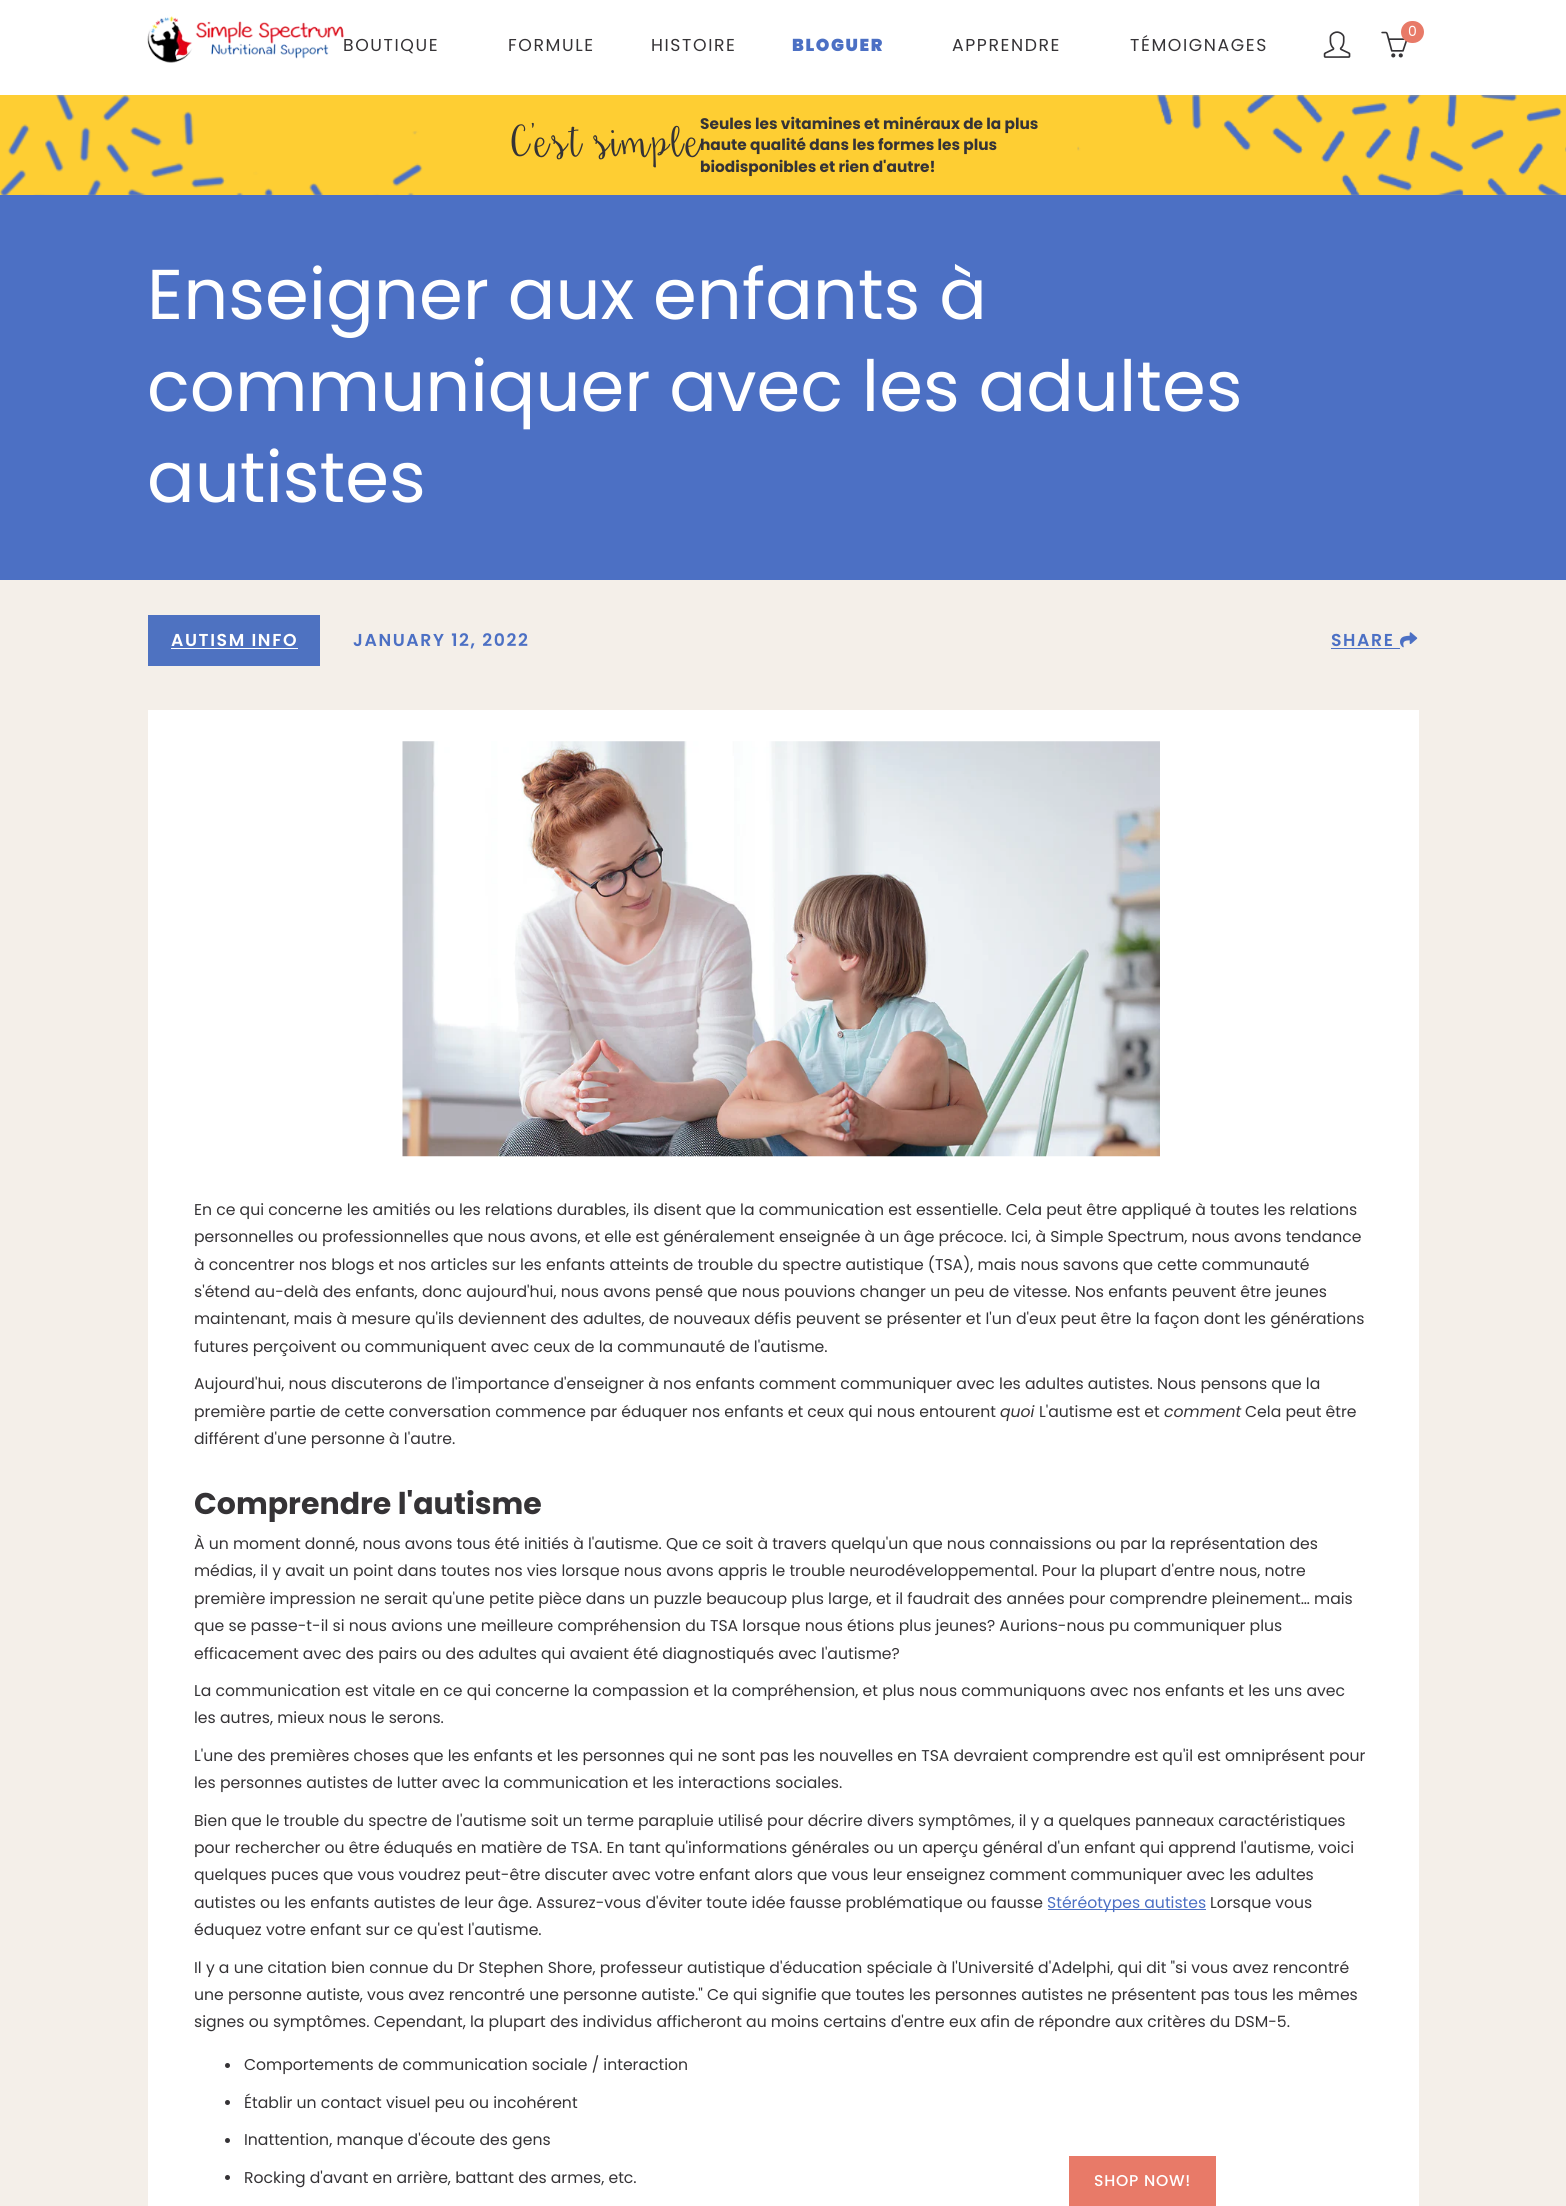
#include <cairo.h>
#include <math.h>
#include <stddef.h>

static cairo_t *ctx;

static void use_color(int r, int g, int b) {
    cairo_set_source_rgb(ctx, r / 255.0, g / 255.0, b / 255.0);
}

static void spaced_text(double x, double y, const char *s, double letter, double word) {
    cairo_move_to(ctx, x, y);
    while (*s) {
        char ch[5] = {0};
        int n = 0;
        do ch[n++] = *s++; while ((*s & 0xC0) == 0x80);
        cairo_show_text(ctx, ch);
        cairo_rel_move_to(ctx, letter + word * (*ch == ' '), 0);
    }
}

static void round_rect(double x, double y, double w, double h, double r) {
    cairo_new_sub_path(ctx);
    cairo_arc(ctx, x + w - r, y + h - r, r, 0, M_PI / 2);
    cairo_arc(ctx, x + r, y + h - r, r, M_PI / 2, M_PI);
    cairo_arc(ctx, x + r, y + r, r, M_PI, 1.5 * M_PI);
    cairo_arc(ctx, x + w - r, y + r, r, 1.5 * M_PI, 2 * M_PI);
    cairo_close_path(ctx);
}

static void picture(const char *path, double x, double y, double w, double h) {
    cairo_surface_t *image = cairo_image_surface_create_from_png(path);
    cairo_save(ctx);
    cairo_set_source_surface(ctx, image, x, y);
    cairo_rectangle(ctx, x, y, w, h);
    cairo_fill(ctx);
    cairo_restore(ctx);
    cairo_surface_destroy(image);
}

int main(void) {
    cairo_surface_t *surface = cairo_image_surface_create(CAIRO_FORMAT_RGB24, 1566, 2206);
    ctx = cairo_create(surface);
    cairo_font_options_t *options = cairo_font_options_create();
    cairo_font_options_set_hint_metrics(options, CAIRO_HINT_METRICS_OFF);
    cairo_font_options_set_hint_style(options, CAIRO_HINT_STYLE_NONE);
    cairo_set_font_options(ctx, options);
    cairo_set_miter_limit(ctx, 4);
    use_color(255, 255, 255);
    cairo_paint(ctx);
    picture("img1.png", 147, 16, 197, 47);
    picture("img2.png", 1381, 31, 27, 27);
    use_color(232, 122, 104);
    round_rect(1401, 21, 23, 22, 11);
    cairo_fill(ctx);
    cairo_select_font_face(ctx, "Poppins", CAIRO_FONT_SLANT_NORMAL, CAIRO_FONT_WEIGHT_NORMAL);
    cairo_set_font_size(ctx, 14);
    use_color(255, 255, 255);
    cairo_move_to(ctx, 1408, 36);
    cairo_show_text(ctx, "0");
    cairo_set_font_size(ctx, 17.25);
    use_color(53, 51, 54);
    spaced_text(343, 51, "BOUTIQUE", 1.6, 0);
    spaced_text(508, 51, "FORMULE", 1.6, 0);
    spaced_text(651, 51, "HISTOIRE", 1.6, 0);
    cairo_select_font_face(ctx, "Poppins Black", CAIRO_FONT_SLANT_NORMAL, CAIRO_FONT_WEIGHT_NORMAL);
    use_color(76, 112, 196);
    spaced_text(792, 51, "BLOGUER", 1.6, 0);
    cairo_select_font_face(ctx, "Poppins", CAIRO_FONT_SLANT_NORMAL, CAIRO_FONT_WEIGHT_NORMAL);
    use_color(53, 51, 54);
    spaced_text(952, 51, "APPRENDRE", 1.6, 0);
    spaced_text(1130, 51, "TÉMOIGNAGES", 1.6, 0);
    picture("img3.png", 1323, 31, 28, 27);
    use_color(254, 206, 51);
    cairo_rectangle(ctx, 0, 95, 1566, 100);
    cairo_fill(ctx);
    picture("img4.png", 0, 95, 423, 100);
    cairo_select_font_face(ctx, "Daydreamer", CAIRO_FONT_SLANT_NORMAL, CAIRO_FONT_WEIGHT_NORMAL);
    cairo_set_font_size(ctx, 44);
    use_color(53, 51, 54);
    cairo_move_to(ctx, 511, 156);
    cairo_show_text(ctx, "C'est");
    cairo_move_to(ctx, 593, 156);
    cairo_show_text(ctx, "simple");
    cairo_select_font_face(ctx, "Poppins", CAIRO_FONT_SLANT_NORMAL, CAIRO_FONT_WEIGHT_BOLD);
    cairo_set_font_size(ctx, 15.35);
    cairo_move_to(ctx, 700, 129);
    cairo_show_text(ctx, "Seules les vitamines et minéraux de la plus");
    cairo_move_to(ctx, 700, 150);
    cairo_show_text(ctx, "haute qualité dans les formes les plus");
    cairo_move_to(ctx, 700, 172);
    cairo_show_text(ctx, "biodisponibles et rien d'autre!");
    picture("img5.png", 1077, 95, 489, 100);
    use_color(76, 112, 196);
    cairo_rectangle(ctx, 0, 195, 1566, 385);
    cairo_fill(ctx);
    cairo_select_font_face(ctx, "Poppins", CAIRO_FONT_SLANT_NORMAL, CAIRO_FONT_WEIGHT_NORMAL);
    cairo_set_font_size(ctx, 70.5);
    use_color(255, 255, 255);
    cairo_move_to(ctx, 147, 319);
    cairo_show_text(ctx, "Enseigner aux enfants à");
    cairo_move_to(ctx, 147, 411);
    cairo_show_text(ctx, "communiquer avec les adultes");
    cairo_move_to(ctx, 147, 502);
    cairo_show_text(ctx, "autistes");
    use_color(244, 239, 233);
    cairo_rectangle(ctx, 0, 580, 1566, 1626);
    cairo_fill(ctx);
    use_color(78, 114, 193);
    cairo_rectangle(ctx, 148, 615, 172, 51);
    cairo_fill(ctx);
    cairo_select_font_face(ctx, "Poppins SemiBold", CAIRO_FONT_SLANT_NORMAL, CAIRO_FONT_WEIGHT_NORMAL);
    cairo_set_font_size(ctx, 17.25);
    use_color(255, 255, 255);
    spaced_text(171, 646, "AUTISM INFO", 1.6, 0);
    cairo_rectangle(ctx, 171, 648, 127, 1);
    cairo_fill(ctx);
    use_color(76, 112, 196);
    spaced_text(353, 646, "JANUARY 12, 2022", 1.6, 0);
    spaced_text(1331, 646, "SHARE", 1.6, 0);
    cairo_rectangle(ctx, 1331, 648, 69, 1);
    cairo_fill(ctx);
    picture("img6.png", 1400, 632, 18, 16);
    use_color(255, 255, 255);
    cairo_rectangle(ctx, 148, 710, 1271, 1496);
    cairo_fill(ctx);
    picture("img7.png", 402, 741, 758, 416);
    cairo_select_font_face(ctx, "Poppins", CAIRO_FONT_SLANT_NORMAL, CAIRO_FONT_WEIGHT_NORMAL);
    cairo_set_font_size(ctx, 15.65);
    use_color(53, 51, 54);
    cairo_move_to(ctx, 194, 1215);
    cairo_show_text(ctx, "En ce qui concerne les amitiés ou les relations durables, ils disent que la communication est essentielle. Cela peut être appliqué à toutes les relations");
    cairo_move_to(ctx, 194, 1242);
    cairo_show_text(ctx, "personnelles ou professionnelles que nous avons, et elle est généralement enseignée à un âge précoce. Ici, à Simple Spectrum, nous avons tendance");
    cairo_move_to(ctx, 194, 1270);
    cairo_show_text(ctx, "à concentrer nos blogs et nos articles sur les enfants atteints de trouble du spectre autistique (TSA), mais nous savons que cette communauté");
    cairo_move_to(ctx, 194, 1297);
    cairo_show_text(ctx, "s'étend au-delà des enfants, donc aujourd'hui, nous avons pensé que nous pouvions changer un peu de vitesse. Nos enfants peuvent être jeunes");
    cairo_move_to(ctx, 194, 1324);
    cairo_show_text(ctx, "maintenant, mais à mesure qu'ils deviennent des adultes, de nouveaux défis peuvent se présenter et l'un d'eux peut être la façon dont les générations");
    cairo_move_to(ctx, 194, 1352);
    cairo_show_text(ctx, "futures perçoivent ou communiquent avec ceux de la communauté de l'autisme.");
    cairo_move_to(ctx, 194, 1389);
    cairo_show_text(ctx, "Aujourd'hui, nous discuterons de l'importance d'enseigner à nos enfants comment communiquer avec les adultes autistes. Nous pensons que la");
    cairo_move_to(ctx, 194, 1417);
    cairo_show_text(ctx, "première partie de cette conversation commence par éduquer nos enfants et ceux qui nous entourent");
    cairo_select_font_face(ctx, "Poppins", CAIRO_FONT_SLANT_ITALIC, CAIRO_FONT_WEIGHT_NORMAL);
    cairo_move_to(ctx, 1000, 1417);
    cairo_show_text(ctx, "quoi");
    cairo_select_font_face(ctx, "Poppins", CAIRO_FONT_SLANT_NORMAL, CAIRO_FONT_WEIGHT_NORMAL);
    cairo_move_to(ctx, 1039, 1417);
    cairo_show_text(ctx, "L'autisme est et");
    cairo_select_font_face(ctx, "Poppins", CAIRO_FONT_SLANT_ITALIC, CAIRO_FONT_WEIGHT_NORMAL);
    cairo_move_to(ctx, 1164, 1417);
    cairo_show_text(ctx, "comment");
    cairo_select_font_face(ctx, "Poppins", CAIRO_FONT_SLANT_NORMAL, CAIRO_FONT_WEIGHT_NORMAL);
    cairo_move_to(ctx, 1245, 1417);
    cairo_show_text(ctx, "Cela peut être");
    cairo_move_to(ctx, 194, 1444);
    cairo_show_text(ctx, "différent d'une personne à l'autre.");
    cairo_select_font_face(ctx, "Poppins", CAIRO_FONT_SLANT_NORMAL, CAIRO_FONT_WEIGHT_BOLD);
    cairo_set_font_size(ctx, 30);
    cairo_move_to(ctx, 194, 1514);
    cairo_show_text(ctx, "Comprendre l'autisme");
    cairo_select_font_face(ctx, "Poppins", CAIRO_FONT_SLANT_NORMAL, CAIRO_FONT_WEIGHT_NORMAL);
    cairo_set_font_size(ctx, 15.65);
    cairo_move_to(ctx, 194, 1549);
    cairo_show_text(ctx, "À un moment donné, nous avons tous été initiés à l'autisme. Que ce soit à travers quelqu'un que nous connaissions ou par la représentation des");
    cairo_move_to(ctx, 194, 1576);
    cairo_show_text(ctx, "médias, il y avait un point dans toutes nos vies lorsque nous avons appris le trouble neurodéveloppemental. Pour la plupart d'entre nous, notre");
    cairo_move_to(ctx, 194, 1604);
    cairo_show_text(ctx, "première impression ne serait qu'une petite pièce dans un puzzle beaucoup plus large, et il faudrait des années pour comprendre pleinement… mais");
    cairo_move_to(ctx, 194, 1631);
    cairo_show_text(ctx, "que se passe-t-il si nous avions une meilleure compréhension du TSA lorsque nous étions plus jeunes? Aurions-nous pu communiquer plus");
    cairo_move_to(ctx, 194, 1659);
    cairo_show_text(ctx, "efficacement avec des pairs ou des adultes qui avaient été diagnostiqués avec l'autisme?");
    cairo_move_to(ctx, 194, 1696);
    cairo_show_text(ctx, "La communication est vitale en ce qui concerne la compassion et la compréhension, et plus nous communiquons avec nos enfants et les uns avec");
    cairo_move_to(ctx, 194, 1723);
    cairo_show_text(ctx, "les autres, mieux nous le serons.");
    cairo_move_to(ctx, 194, 1761);
    cairo_show_text(ctx, "L'une des premières choses que les enfants et les personnes qui ne sont pas les nouvelles en TSA devraient comprendre est qu'il est omniprésent pour");
    cairo_move_to(ctx, 194, 1788);
    cairo_show_text(ctx, "les personnes autistes de lutter avec la communication et les interactions sociales.");
    cairo_move_to(ctx, 194, 1826);
    cairo_show_text(ctx, "Bien que le trouble du spectre de l'autisme soit un terme parapluie utilisé pour décrire divers symptômes, il y a quelques panneaux caractéristiques");
    cairo_move_to(ctx, 194, 1853);
    cairo_show_text(ctx, "pour rechercher ou être éduqués en matière de TSA. En tant qu'informations générales ou un aperçu général d'un enfant qui apprend l'autisme, voici");
    cairo_move_to(ctx, 194, 1880);
    cairo_show_text(ctx, "quelques puces que vous voudrez peut-être discuter avec votre enfant alors que vous leur enseignez comment communiquer avec les adultes");
    cairo_move_to(ctx, 194, 1908);
    cairo_show_text(ctx, "autistes ou les enfants autistes de leur âge. Assurez-vous d'éviter toute idée fausse problématique ou fausse");
    use_color(76, 112, 196);
    cairo_rectangle(ctx, 1048, 1909, 158, 1);
    cairo_fill(ctx);
    cairo_move_to(ctx, 1047, 1908);
    cairo_show_text(ctx, "Stéréotypes autistes");
    use_color(53, 51, 54);
    cairo_move_to(ctx, 1210, 1908);
    cairo_show_text(ctx, "Lorsque vous");
    cairo_move_to(ctx, 194, 1935);
    cairo_show_text(ctx, "éduquez votre enfant sur ce qu'est l'autisme.");
    cairo_move_to(ctx, 194, 1973);
    cairo_show_text(ctx, "Il y a une citation bien connue du Dr Stephen Shore, professeur autistique d'éducation spéciale à l'Université d'Adelphi, qui dit \"si vous avez rencontré");
    cairo_move_to(ctx, 194, 2000);
    cairo_show_text(ctx, "une personne autiste, vous avez rencontré une personne autiste.\" Ce qui signifie que toutes les personnes autistes ne présentent pas tous les mêmes");
    cairo_move_to(ctx, 194, 2027);
    cairo_show_text(ctx, "signes ou symptômes. Cependant, la plupart des individus afficheront au moins certains d'entre eux afin de répondre aux critères du DSM-5.");
    cairo_new_path(ctx);
    cairo_arc(ctx, 227.5, 2065.5, 2.5, 0, 2 * M_PI);
    cairo_fill(ctx);
    cairo_move_to(ctx, 244, 2070);
    cairo_show_text(ctx, "Comportements de communication sociale / interaction");
    cairo_new_path(ctx);
    cairo_arc(ctx, 227.5, 2102.5, 2.5, 0, 2 * M_PI);
    cairo_fill(ctx);
    cairo_move_to(ctx, 244, 2108);
    cairo_show_text(ctx, "Établir un contact visuel peu ou incohérent");
    cairo_new_path(ctx);
    cairo_arc(ctx, 227.5, 2140.5, 2.5, 0, 2 * M_PI);
    cairo_fill(ctx);
    cairo_move_to(ctx, 244, 2145);
    cairo_show_text(ctx, "Inattention, manque d'écoute des gens");
    cairo_new_path(ctx);
    cairo_arc(ctx, 227.5, 2177.5, 2.5, 0, 2 * M_PI);
    cairo_fill(ctx);
    cairo_move_to(ctx, 244, 2183);
    cairo_show_text(ctx, "Rocking d'avant en arrière, battant des armes, etc.");
    use_color(232, 122, 104);
    cairo_rectangle(ctx, 1069, 2156, 147, 50);
    cairo_fill(ctx);
    cairo_select_font_face(ctx, "Poppins Medium", CAIRO_FONT_SLANT_NORMAL, CAIRO_FONT_WEIGHT_NORMAL);
    use_color(255, 255, 255);
    spaced_text(1094, 2186, "SHOP NOW!", 0.75, 0);
    cairo_surface_write_to_png(surface, "result.png");
    cairo_font_options_destroy(options);
    cairo_destroy(ctx);
    cairo_surface_destroy(surface);
    return 0;
}
